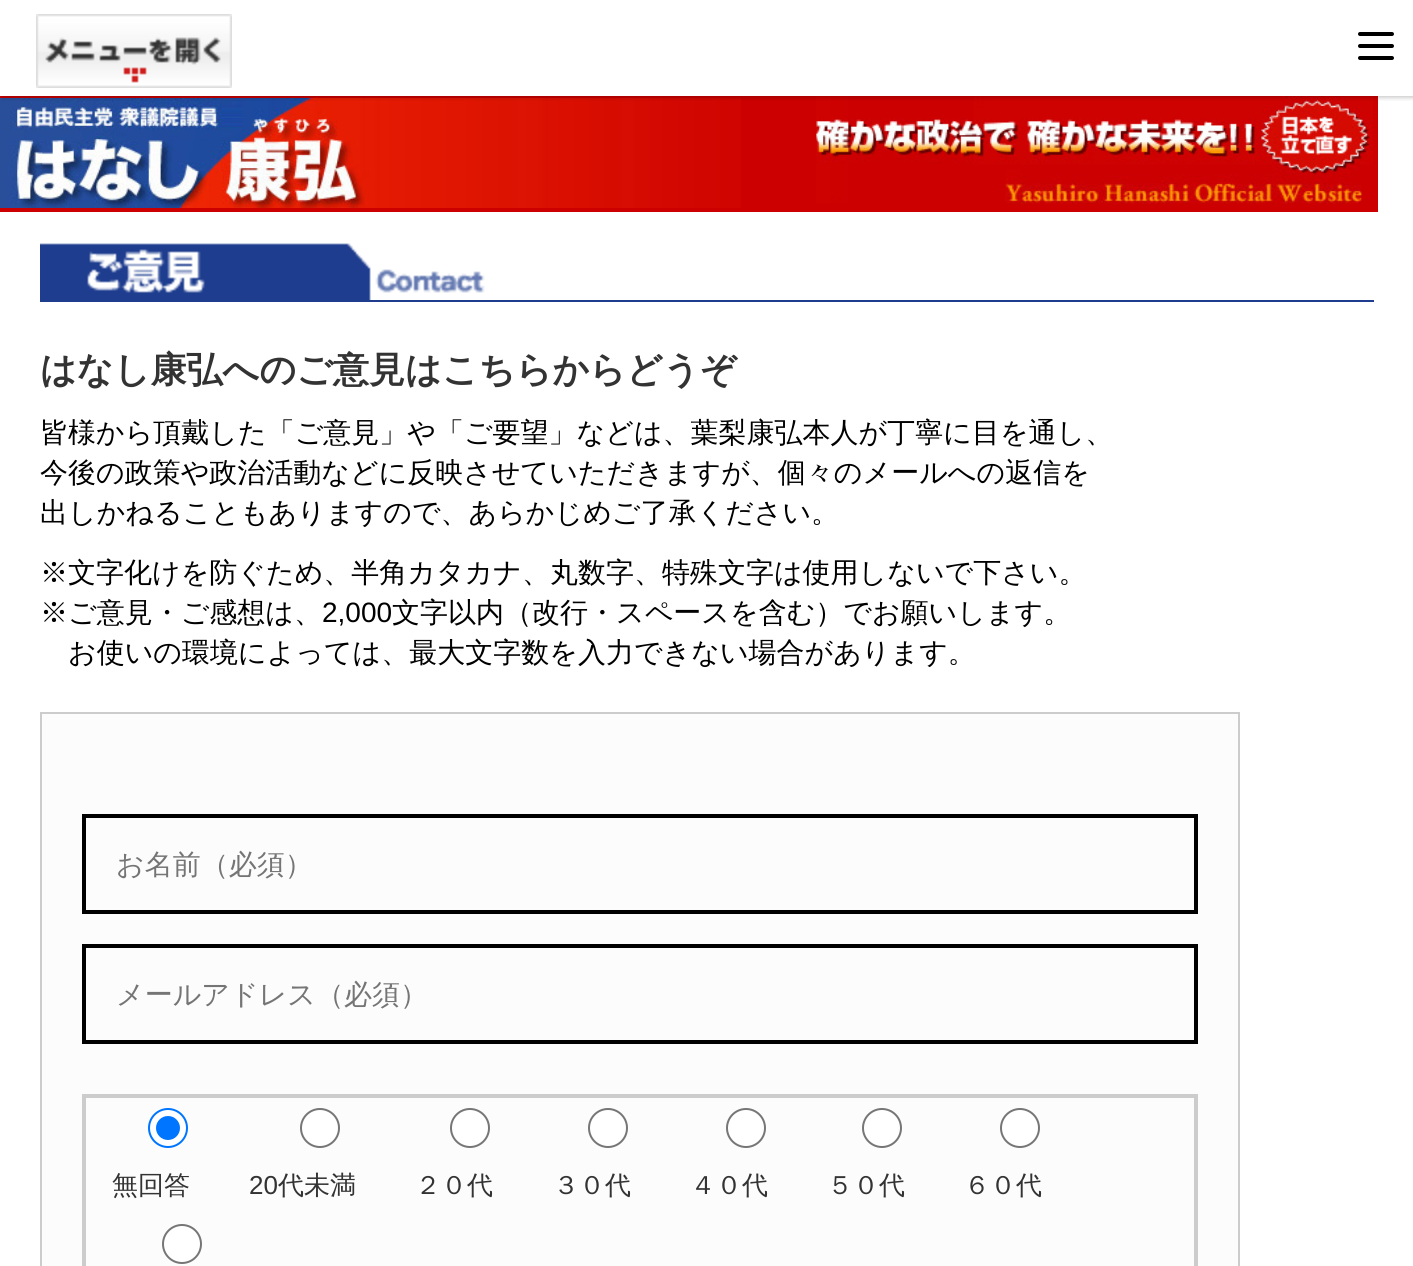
#include <cairo.h>
#include <math.h>
#include <stddef.h>

static cairo_t *ctx;

static void use_color(int r, int g, int b) {
    cairo_set_source_rgb(ctx, r / 255.0, g / 255.0, b / 255.0);
}

static void round_rect(double x, double y, double w, double h, double r) {
    cairo_new_sub_path(ctx);
    cairo_arc(ctx, x + w - r, y + h - r, r, 0, M_PI / 2);
    cairo_arc(ctx, x + r, y + h - r, r, M_PI / 2, M_PI);
    cairo_arc(ctx, x + r, y + r, r, M_PI, 1.5 * M_PI);
    cairo_arc(ctx, x + w - r, y + r, r, 1.5 * M_PI, 2 * M_PI);
    cairo_close_path(ctx);
}

static void shadow(double x, double y, double w, double h, double r, double blur, double alpha) {
    cairo_push_group_with_content(ctx, CAIRO_CONTENT_ALPHA);
    cairo_set_operator(ctx, CAIRO_OPERATOR_SOURCE);
    for (int i = 15; i >= -15 && fmin(w, h) + blur * i / 3 > 0; i -= 2) {
        double e = blur * i / 6;
        cairo_set_source_rgba(ctx, 0, 0, 0, alpha * erfc((i - 1) / 8.5) / 2);
        round_rect(x - e, y - e, w + 2 * e, h + 2 * e, fmax(0, fmin(r + e + blur * .6, fmin(w, h) / 2 + e)));
        cairo_fill(ctx);
    }
    cairo_pattern_t *soft = cairo_pop_group(ctx);
    cairo_mask(ctx, soft);
    cairo_pattern_destroy(soft);
}

static void picture(const char *path, double x, double y, double w, double h) {
    cairo_surface_t *image = cairo_image_surface_create_from_png(path);
    cairo_save(ctx);
    cairo_set_source_surface(ctx, image, x, y);
    cairo_rectangle(ctx, x, y, w, h);
    cairo_fill(ctx);
    cairo_restore(ctx);
    cairo_surface_destroy(image);
}

int main(void) {
    cairo_surface_t *surface = cairo_image_surface_create(CAIRO_FORMAT_RGB24, 1413, 1266);
    ctx = cairo_create(surface);
    cairo_font_options_t *options = cairo_font_options_create();
    cairo_font_options_set_hint_metrics(options, CAIRO_HINT_METRICS_OFF);
    cairo_font_options_set_hint_style(options, CAIRO_HINT_STYLE_NONE);
    cairo_set_font_options(ctx, options);
    cairo_set_miter_limit(ctx, 4);
    use_color(255, 255, 255);
    cairo_paint(ctx);
    use_color(204, 0, 0);
    cairo_rectangle(ctx, 0, 96, 1378, 116);
    cairo_fill(ctx);
    picture("img2.png", 0, 98, 741, 110);
    picture("img3.png", 816, 96, 557, 108);
    cairo_save(ctx);
    cairo_rectangle(ctx, 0, 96, 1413, 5);
    cairo_clip(ctx);
    use_color(0, 0, 0);
    shadow(2, 2, 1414, 96, 0, 2, 0.2);
    cairo_restore(ctx);
    picture("img1.png", 36, 14, 196, 74);
    use_color(0, 0, 0);
    round_rect(1358, 32, 36, 4, 2);
    cairo_fill(ctx);
    round_rect(1358, 44, 36, 4, 2);
    cairo_fill(ctx);
    round_rect(1358, 56, 36, 4, 2);
    cairo_fill(ctx);
    use_color(30, 61, 143);
    cairo_rectangle(ctx, 40, 300, 1334, 2);
    cairo_fill(ctx);
    picture("img4.png", 40, 243, 445, 57);
    cairo_select_font_face(ctx, "WenQuanYi Zen Hei", CAIRO_FONT_SLANT_NORMAL, CAIRO_FONT_WEIGHT_BOLD);
    cairo_set_font_size(ctx, 36);
    use_color(51, 51, 51);
    cairo_move_to(ctx, 40, 382);
    cairo_show_text(ctx, "はなし康弘へのご意見はこちらからどうぞ");
    cairo_select_font_face(ctx, "WenQuanYi Zen Hei Medium", CAIRO_FONT_SLANT_NORMAL, CAIRO_FONT_WEIGHT_NORMAL);
    cairo_set_font_size(ctx, 28);
    use_color(0, 0, 0);
    cairo_move_to(ctx, 40, 442);
    cairo_show_text(ctx, "皆様から頂戴した「ご意見」や「ご要望」などは、葉梨康弘本人が丁寧に目を通し、");
    cairo_move_to(ctx, 40, 482);
    cairo_show_text(ctx, "今後の政策や政治活動などに反映させていただきますが、個々のメールへの返信を");
    cairo_move_to(ctx, 40, 522);
    cairo_show_text(ctx, "出しかねることもありますので、あらかじめご了承ください。");
    cairo_move_to(ctx, 40, 582);
    cairo_show_text(ctx, "※文字化けを防ぐため、半角カタカナ、丸数字、特殊文字は使用しないで下さい。");
    cairo_move_to(ctx, 40, 622);
    cairo_show_text(ctx, "※ご意見・ご感想は、");
    cairo_select_font_face(ctx, "Liberation Sans", CAIRO_FONT_SLANT_NORMAL, CAIRO_FONT_WEIGHT_NORMAL);
    cairo_move_to(ctx, 322, 622);
    cairo_show_text(ctx, "2,000");
    cairo_select_font_face(ctx, "WenQuanYi Zen Hei Medium", CAIRO_FONT_SLANT_NORMAL, CAIRO_FONT_WEIGHT_NORMAL);
    cairo_move_to(ctx, 392, 622);
    cairo_show_text(ctx, "文字以内（改行・スペースを含む）でお願いします。");
    cairo_move_to(ctx, 68, 662);
    cairo_show_text(ctx, "お使いの環境によっては、最大文字数を入力できない場合があります。");
    use_color(252, 252, 252);
    cairo_rectangle(ctx, 41, 713, 1198, 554);
    cairo_fill_preserve(ctx);
    use_color(204, 204, 204);
    cairo_stroke(ctx);
    cairo_rectangle(ctx, 84, 816, 1112, 96);
    use_color(0, 0, 0);
    cairo_set_line_width(ctx, 4);
    cairo_stroke(ctx);
    use_color(117, 117, 117);
    cairo_move_to(ctx, 116, 874);
    cairo_show_text(ctx, "お名前（必須）");
    cairo_rectangle(ctx, 84, 946, 1112, 96);
    use_color(0, 0, 0);
    cairo_stroke(ctx);
    use_color(117, 117, 117);
    cairo_move_to(ctx, 116, 1004);
    cairo_show_text(ctx, "メールアドレス（必須）");
    cairo_rectangle(ctx, 84, 1096, 1112, 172);
    use_color(204, 204, 204);
    cairo_stroke(ctx);
    use_color(255, 255, 255);
    cairo_arc(ctx, 168, 1128, 19, 0, 2 * M_PI);
    cairo_fill_preserve(ctx);
    use_color(0, 117, 255);
    cairo_set_line_width(ctx, 2);
    cairo_stroke(ctx);
    cairo_arc(ctx, 168, 1128, 12, 0, 2 * M_PI);
    cairo_fill(ctx);
    cairo_set_font_size(ctx, 26);
    use_color(51, 51, 51);
    cairo_move_to(ctx, 112, 1194);
    cairo_show_text(ctx, "無回答");
    use_color(255, 255, 255);
    cairo_new_path(ctx);
    cairo_arc(ctx, 320, 1128, 19, 0, 2 * M_PI);
    cairo_fill_preserve(ctx);
    use_color(118, 118, 118);
    cairo_stroke(ctx);
    cairo_select_font_face(ctx, "Liberation Sans", CAIRO_FONT_SLANT_NORMAL, CAIRO_FONT_WEIGHT_NORMAL);
    use_color(51, 51, 51);
    cairo_move_to(ctx, 249, 1194);
    cairo_show_text(ctx, "20");
    cairo_select_font_face(ctx, "WenQuanYi Zen Hei Medium", CAIRO_FONT_SLANT_NORMAL, CAIRO_FONT_WEIGHT_NORMAL);
    cairo_move_to(ctx, 278, 1194);
    cairo_show_text(ctx, "代未満");
    use_color(255, 255, 255);
    cairo_new_path(ctx);
    cairo_arc(ctx, 470, 1128, 19, 0, 2 * M_PI);
    cairo_fill_preserve(ctx);
    use_color(118, 118, 118);
    cairo_stroke(ctx);
    use_color(51, 51, 51);
    cairo_move_to(ctx, 415, 1194);
    cairo_show_text(ctx, "２０代");
    use_color(255, 255, 255);
    cairo_new_path(ctx);
    cairo_arc(ctx, 608, 1128, 19, 0, 2 * M_PI);
    cairo_fill_preserve(ctx);
    use_color(118, 118, 118);
    cairo_stroke(ctx);
    use_color(51, 51, 51);
    cairo_move_to(ctx, 553, 1194);
    cairo_show_text(ctx, "３０代");
    use_color(255, 255, 255);
    cairo_new_path(ctx);
    cairo_arc(ctx, 746, 1128, 19, 0, 2 * M_PI);
    cairo_fill_preserve(ctx);
    use_color(118, 118, 118);
    cairo_stroke(ctx);
    use_color(51, 51, 51);
    cairo_move_to(ctx, 690, 1194);
    cairo_show_text(ctx, "４０代");
    use_color(255, 255, 255);
    cairo_new_path(ctx);
    cairo_arc(ctx, 882, 1128, 19, 0, 2 * M_PI);
    cairo_fill_preserve(ctx);
    use_color(118, 118, 118);
    cairo_stroke(ctx);
    use_color(51, 51, 51);
    cairo_move_to(ctx, 827, 1194);
    cairo_show_text(ctx, "５０代");
    use_color(255, 255, 255);
    cairo_new_path(ctx);
    cairo_arc(ctx, 1020, 1128, 19, 0, 2 * M_PI);
    cairo_fill_preserve(ctx);
    use_color(118, 118, 118);
    cairo_stroke(ctx);
    use_color(51, 51, 51);
    cairo_move_to(ctx, 964, 1194);
    cairo_show_text(ctx, "６０代");
    use_color(255, 255, 255);
    cairo_new_path(ctx);
    cairo_arc(ctx, 182, 1244, 19, 0, 2 * M_PI);
    cairo_fill_preserve(ctx);
    use_color(118, 118, 118);
    cairo_stroke(ctx);
    cairo_surface_write_to_png(surface, "result.png");
    cairo_font_options_destroy(options);
    cairo_destroy(ctx);
    cairo_surface_destroy(surface);
    return 0;
}
